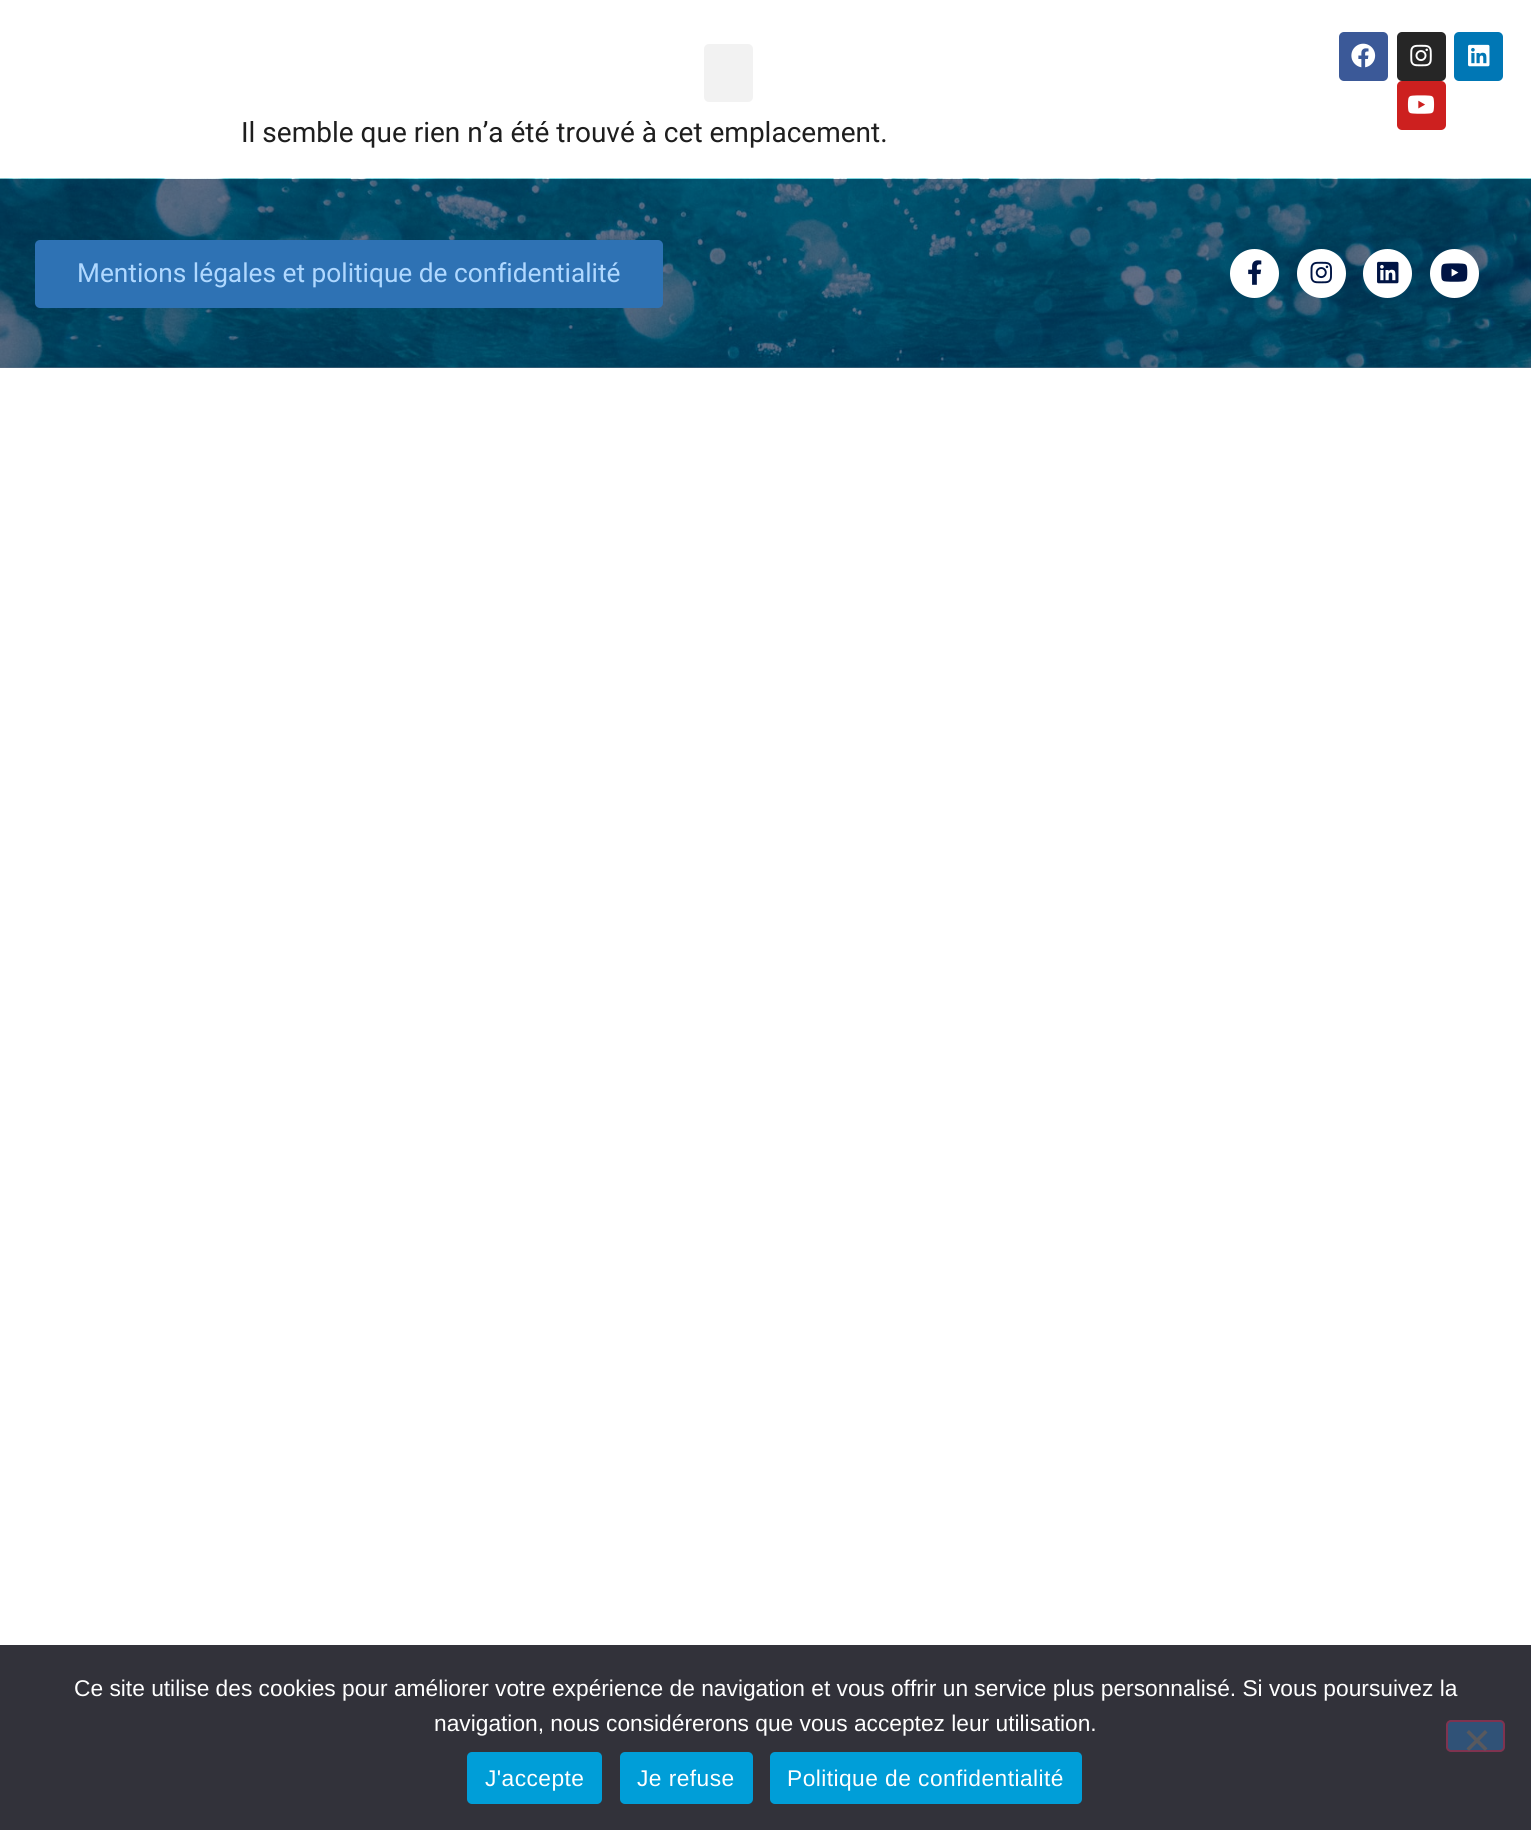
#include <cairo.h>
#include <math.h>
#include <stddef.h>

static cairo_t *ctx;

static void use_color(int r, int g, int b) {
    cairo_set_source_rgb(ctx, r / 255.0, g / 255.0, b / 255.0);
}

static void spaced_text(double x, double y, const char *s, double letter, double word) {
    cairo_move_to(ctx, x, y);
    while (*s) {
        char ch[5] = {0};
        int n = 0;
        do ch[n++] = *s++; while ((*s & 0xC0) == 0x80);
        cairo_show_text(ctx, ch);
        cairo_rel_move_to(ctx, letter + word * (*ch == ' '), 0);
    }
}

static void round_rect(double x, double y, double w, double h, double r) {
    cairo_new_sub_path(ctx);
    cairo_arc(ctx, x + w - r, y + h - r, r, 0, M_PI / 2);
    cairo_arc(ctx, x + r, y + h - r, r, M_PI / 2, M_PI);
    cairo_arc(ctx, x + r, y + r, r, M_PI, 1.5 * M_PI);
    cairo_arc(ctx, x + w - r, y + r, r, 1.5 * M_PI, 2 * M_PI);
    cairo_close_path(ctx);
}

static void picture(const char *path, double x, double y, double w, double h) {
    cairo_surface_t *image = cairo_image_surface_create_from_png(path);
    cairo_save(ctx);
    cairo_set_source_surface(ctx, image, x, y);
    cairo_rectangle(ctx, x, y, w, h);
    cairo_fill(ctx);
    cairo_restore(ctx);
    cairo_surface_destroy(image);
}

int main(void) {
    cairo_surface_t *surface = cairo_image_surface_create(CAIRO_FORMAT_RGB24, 1531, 1830);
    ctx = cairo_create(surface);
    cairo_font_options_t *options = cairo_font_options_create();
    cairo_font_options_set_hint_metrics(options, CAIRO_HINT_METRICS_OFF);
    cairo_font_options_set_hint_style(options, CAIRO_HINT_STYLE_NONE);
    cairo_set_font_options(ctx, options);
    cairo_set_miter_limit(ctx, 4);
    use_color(255, 255, 255);
    cairo_paint(ctx);
    use_color(102, 112, 134);
    cairo_rectangle(ctx, 0, 367, 1531, 1);
    cairo_fill(ctx);
    use_color(242, 242, 242);
    round_rect(704, 44, 49, 58, 5);
    cairo_fill(ctx);
    use_color(59, 89, 152);
    round_rect(1339, 32, 49, 49, 5);
    cairo_fill(ctx);
    picture("img1.png", 1351, 43, 25, 25);
    use_color(38, 38, 38);
    round_rect(1397, 32, 49, 49, 5);
    cairo_fill(ctx);
    picture("img2.png", 1410, 44, 22, 23);
    use_color(0, 119, 181);
    round_rect(1454, 32, 49, 49, 5);
    cairo_fill(ctx);
    picture("img3.png", 1468, 44, 22, 23);
    use_color(205, 32, 31);
    round_rect(1397, 81, 49, 49, 5);
    cairo_fill(ctx);
    picture("img4.png", 1407, 95, 28, 19);
    cairo_select_font_face(ctx, "Roboto", CAIRO_FONT_SLANT_NORMAL, CAIRO_FONT_WEIGHT_NORMAL);
    cairo_set_font_size(ctx, 28);
    use_color(30, 30, 30);
    cairo_move_to(ctx, 241, 142);
    cairo_show_text(ctx, "Il semble que rien n’a été trouvé à cet emplacement.");
    picture("img5.png", 0, 178, 1531, 190);
    use_color(46, 114, 180);
    round_rect(35, 240, 628, 68, 5);
    cairo_fill(ctx);
    cairo_set_font_size(ctx, 26.25);
    use_color(175, 216, 255);
    cairo_move_to(ctx, 77, 282);
    cairo_show_text(ctx, "Mentions légales et politique de confidentialité");
    use_color(255, 255, 255);
    cairo_new_path(ctx);
    cairo_arc(ctx, 1254.5, 273.5, 24.5, 0, 2 * M_PI);
    cairo_fill(ctx);
    picture("img6.png", 1248, 260, 14, 25);
    cairo_arc(ctx, 1321.5, 273.5, 24.5, 0, 2 * M_PI);
    cairo_fill(ctx);
    picture("img7.png", 1310, 261, 22, 23);
    cairo_arc(ctx, 1387.5, 273.5, 24.5, 0, 2 * M_PI);
    cairo_fill(ctx);
    picture("img8.png", 1377, 261, 22, 23);
    cairo_arc(ctx, 1454.5, 273.5, 24.5, 0, 2 * M_PI);
    cairo_fill(ctx);
    picture("img9.png", 1441, 263, 27, 19);
    use_color(50, 50, 58);
    cairo_rectangle(ctx, 0, 1645, 1531, 185);
    cairo_fill(ctx);
    cairo_select_font_face(ctx, "Liberation Sans", CAIRO_FONT_SLANT_NORMAL, CAIRO_FONT_WEIGHT_NORMAL);
    cairo_set_font_size(ctx, 22.75);
    use_color(255, 255, 255);
    cairo_move_to(ctx, 74, 1696);
    cairo_show_text(ctx, "Ce site utilise des cookies pour améliorer votre expérience de navigation et vous offrir un service plus personnalisé. Si vous poursuivez la");
    cairo_move_to(ctx, 434, 1731);
    cairo_show_text(ctx, "navigation, nous considérerons que vous acceptez leur utilisation.");
    use_color(48, 82, 119);
    round_rect(1447, 1721, 57, 30, 4);
    cairo_fill_preserve(ctx);
    use_color(127, 51, 80);
    cairo_stroke(ctx);
    use_color(89, 89, 93);
    cairo_new_path(ctx);
    cairo_move_to(ctx, 1485, 1730);
    cairo_line_to(ctx, 1487.5, 1732.5);
    cairo_line_to(ctx, 1469, 1751);
    cairo_line_to(ctx, 1466.5, 1748.5);
    cairo_close_path(ctx);
    cairo_fill(ctx);
    cairo_new_path(ctx);
    cairo_move_to(ctx, 1466.5, 1732.5);
    cairo_line_to(ctx, 1469, 1730);
    cairo_line_to(ctx, 1487.5, 1748.5);
    cairo_line_to(ctx, 1485, 1751);
    cairo_close_path(ctx);
    cairo_fill(ctx);
    use_color(0, 158, 216);
    round_rect(467, 1752, 135, 52, 5);
    cairo_fill(ctx);
    use_color(255, 255, 255);
    spaced_text(485, 1786, "J'accepte", 0.45, 0);
    use_color(0, 158, 216);
    round_rect(620, 1752, 133, 52, 5);
    cairo_fill(ctx);
    use_color(255, 255, 255);
    spaced_text(637, 1786, "Je refuse", 0.45, 0);
    use_color(0, 158, 216);
    round_rect(770, 1752, 312, 52, 5);
    cairo_fill(ctx);
    use_color(255, 255, 255);
    spaced_text(787, 1786, "Politique de confidentialité", 0.45, 0);
    cairo_surface_write_to_png(surface, "result.png");
    cairo_font_options_destroy(options);
    cairo_destroy(ctx);
    cairo_surface_destroy(surface);
    return 0;
}
